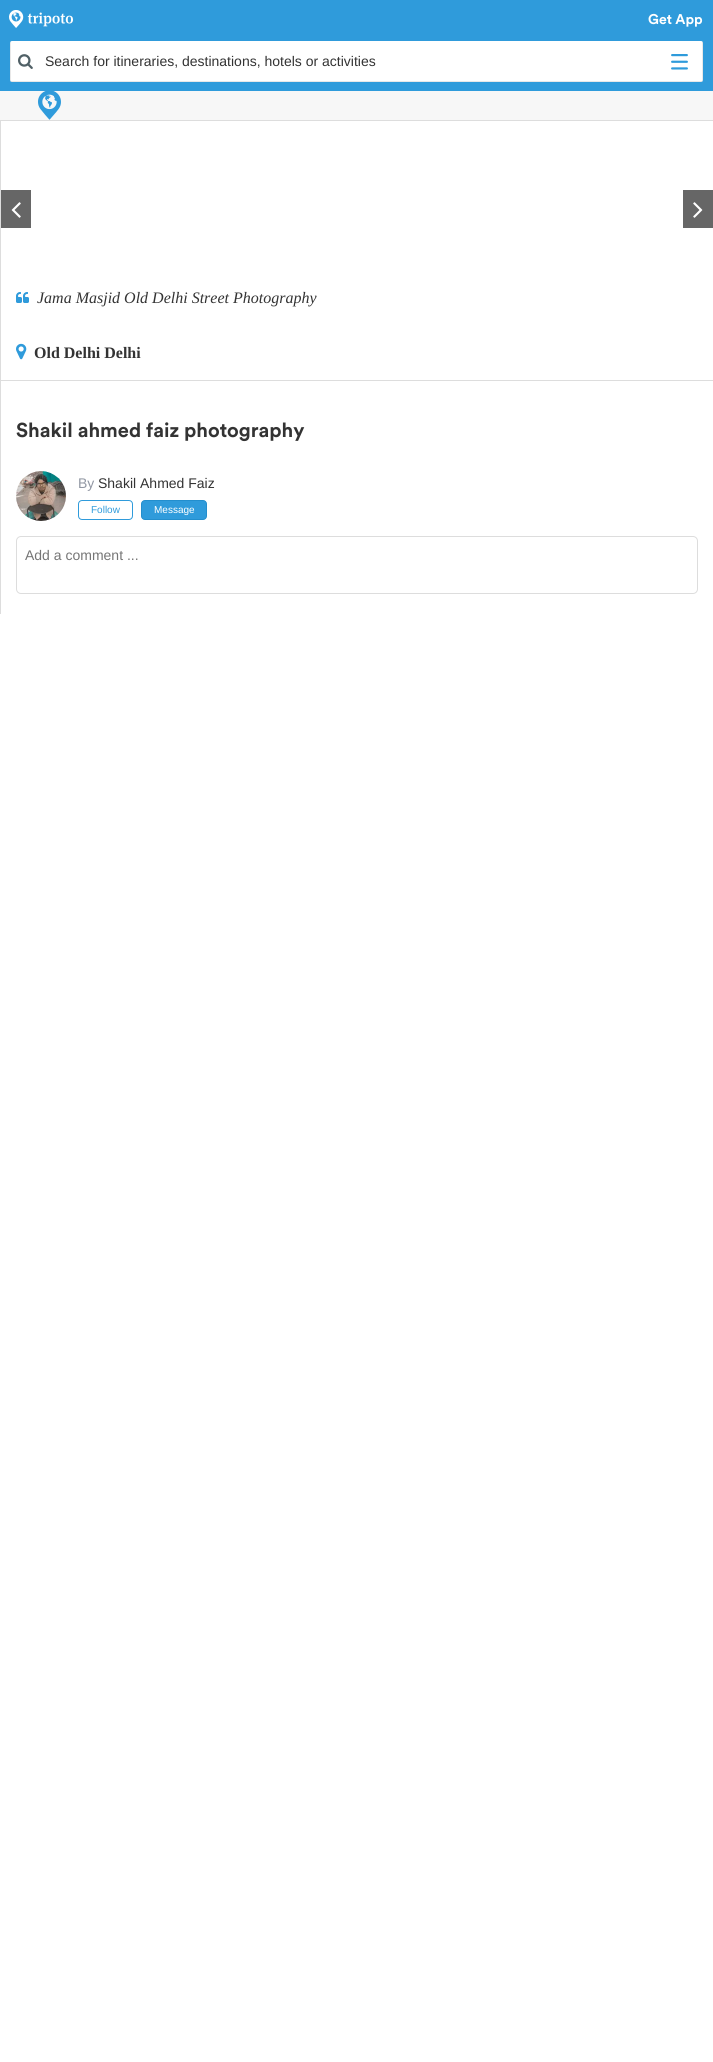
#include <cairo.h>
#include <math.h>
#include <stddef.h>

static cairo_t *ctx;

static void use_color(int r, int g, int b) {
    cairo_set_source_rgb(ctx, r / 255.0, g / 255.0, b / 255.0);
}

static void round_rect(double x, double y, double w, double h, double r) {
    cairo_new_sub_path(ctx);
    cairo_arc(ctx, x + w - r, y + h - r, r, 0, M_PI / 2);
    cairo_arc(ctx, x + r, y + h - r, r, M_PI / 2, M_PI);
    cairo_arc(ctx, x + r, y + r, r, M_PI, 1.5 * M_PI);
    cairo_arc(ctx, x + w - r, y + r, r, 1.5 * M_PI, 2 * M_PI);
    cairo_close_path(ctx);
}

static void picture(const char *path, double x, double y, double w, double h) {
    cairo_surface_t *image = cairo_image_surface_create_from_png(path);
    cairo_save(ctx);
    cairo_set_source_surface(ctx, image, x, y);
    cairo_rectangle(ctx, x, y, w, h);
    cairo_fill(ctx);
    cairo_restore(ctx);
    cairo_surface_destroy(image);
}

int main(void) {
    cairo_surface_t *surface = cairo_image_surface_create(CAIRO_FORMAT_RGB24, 713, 2062);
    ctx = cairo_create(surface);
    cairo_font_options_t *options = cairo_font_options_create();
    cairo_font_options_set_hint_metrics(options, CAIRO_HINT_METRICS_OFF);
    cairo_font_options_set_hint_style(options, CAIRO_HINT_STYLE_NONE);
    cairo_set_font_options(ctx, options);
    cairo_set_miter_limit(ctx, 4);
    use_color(255, 255, 255);
    cairo_paint(ctx);
    use_color(47, 155, 219);
    cairo_rectangle(ctx, 0, 0, 713, 91);
    cairo_fill(ctx);
    picture("img1.png", 9, 10, 64, 18);
    cairo_select_font_face(ctx, "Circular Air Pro", CAIRO_FONT_SLANT_NORMAL, CAIRO_FONT_WEIGHT_BOLD);
    cairo_set_font_size(ctx, 14);
    use_color(255, 255, 255);
    cairo_move_to(ctx, 648, 24);
    cairo_show_text(ctx, "Get App");
    round_rect(10, 41, 693, 41, 2);
    cairo_fill(ctx);
    picture("img2.png", 18, 54, 15, 15);
    cairo_set_source_rgba(ctx, 0, 0, 0, 0.09);
    cairo_rectangle(ctx, 702, 42, 1, 39);
    cairo_fill(ctx);
    cairo_rectangle(ctx, 11, 81, 691, 1);
    cairo_fill(ctx);
    cairo_rectangle(ctx, 10, 42, 1, 39);
    cairo_fill(ctx);
    cairo_select_font_face(ctx, "Liberation Sans", CAIRO_FONT_SLANT_NORMAL, CAIRO_FONT_WEIGHT_NORMAL);
    use_color(51, 51, 51);
    cairo_move_to(ctx, 45, 66);
    cairo_show_text(ctx, "Search for itineraries, destinations, hotels or activities");
    picture("img3.png", 671, 54, 17, 16);
    use_color(247, 247, 247);
    cairo_rectangle(ctx, 0, 91, 713, 29);
    cairo_fill(ctx);
    use_color(221, 221, 221);
    cairo_rectangle(ctx, 0, 120, 713, 1);
    cairo_fill(ctx);
    picture("img4.png", 38, 91, 23, 29);
    cairo_rectangle(ctx, 0, 121, 1, 493);
    cairo_fill(ctx);
    use_color(102, 102, 102);
    cairo_rectangle(ctx, 1, 190, 30, 38);
    cairo_fill(ctx);
    picture("img5.png", 11, 202, 10, 16);
    cairo_rectangle(ctx, 683, 190, 30, 38);
    cairo_fill(ctx);
    picture("img6.png", 693, 202, 10, 16);
    use_color(221, 221, 221);
    cairo_rectangle(ctx, 1, 380, 712, 1);
    cairo_fill(ctx);
    picture("img7.png", 16, 292, 13, 11);
    cairo_select_font_face(ctx, "Liberation Serif", CAIRO_FONT_SLANT_ITALIC, CAIRO_FONT_WEIGHT_NORMAL);
    cairo_set_font_size(ctx, 16);
    use_color(51, 51, 51);
    cairo_move_to(ctx, 37, 303);
    cairo_show_text(ctx, "Jama Masjid Old Delhi Street Photography");
    picture("img8.png", 16, 343, 11, 17);
    cairo_select_font_face(ctx, "Liberation Serif", CAIRO_FONT_SLANT_NORMAL, CAIRO_FONT_WEIGHT_BOLD);
    cairo_move_to(ctx, 34, 358);
    cairo_show_text(ctx, "Old Delhi Delhi");
    cairo_select_font_face(ctx, "Circular Air Pro", CAIRO_FONT_SLANT_NORMAL, CAIRO_FONT_WEIGHT_BOLD);
    cairo_set_font_size(ctx, 20);
    cairo_move_to(ctx, 16, 437);
    cairo_show_text(ctx, "Shakil ahmed faiz photography");
    picture("img9.png", 16, 471, 50, 50);
    cairo_select_font_face(ctx, "Liberation Sans", CAIRO_FONT_SLANT_NORMAL, CAIRO_FONT_WEIGHT_NORMAL);
    cairo_set_font_size(ctx, 14);
    use_color(145, 151, 163);
    cairo_move_to(ctx, 78, 488);
    cairo_show_text(ctx, "By");
    use_color(51, 51, 51);
    cairo_move_to(ctx, 98, 488);
    cairo_show_text(ctx, "Shakil Ahmed Faiz");
    round_rect(78.5, 500.5, 54, 19, 3.5);
    use_color(47, 155, 219);
    cairo_set_line_width(ctx, 1);
    cairo_stroke(ctx);
    cairo_set_font_size(ctx, 10);
    cairo_move_to(ctx, 91, 513);
    cairo_show_text(ctx, "Follow");
    round_rect(141.5, 500.5, 65, 19, 3.5);
    cairo_fill_preserve(ctx);
    use_color(35, 142, 205);
    cairo_stroke(ctx);
    use_color(255, 255, 255);
    cairo_move_to(ctx, 154, 513);
    cairo_show_text(ctx, "Message");
    round_rect(16.5, 536.5, 681, 57, 4.5);
    use_color(221, 221, 221);
    cairo_stroke(ctx);
    cairo_set_font_size(ctx, 14);
    use_color(117, 117, 117);
    cairo_move_to(ctx, 25, 560);
    cairo_show_text(ctx, "Add a comment ...");
    cairo_surface_write_to_png(surface, "result.png");
    cairo_font_options_destroy(options);
    cairo_destroy(ctx);
    cairo_surface_destroy(surface);
    return 0;
}
